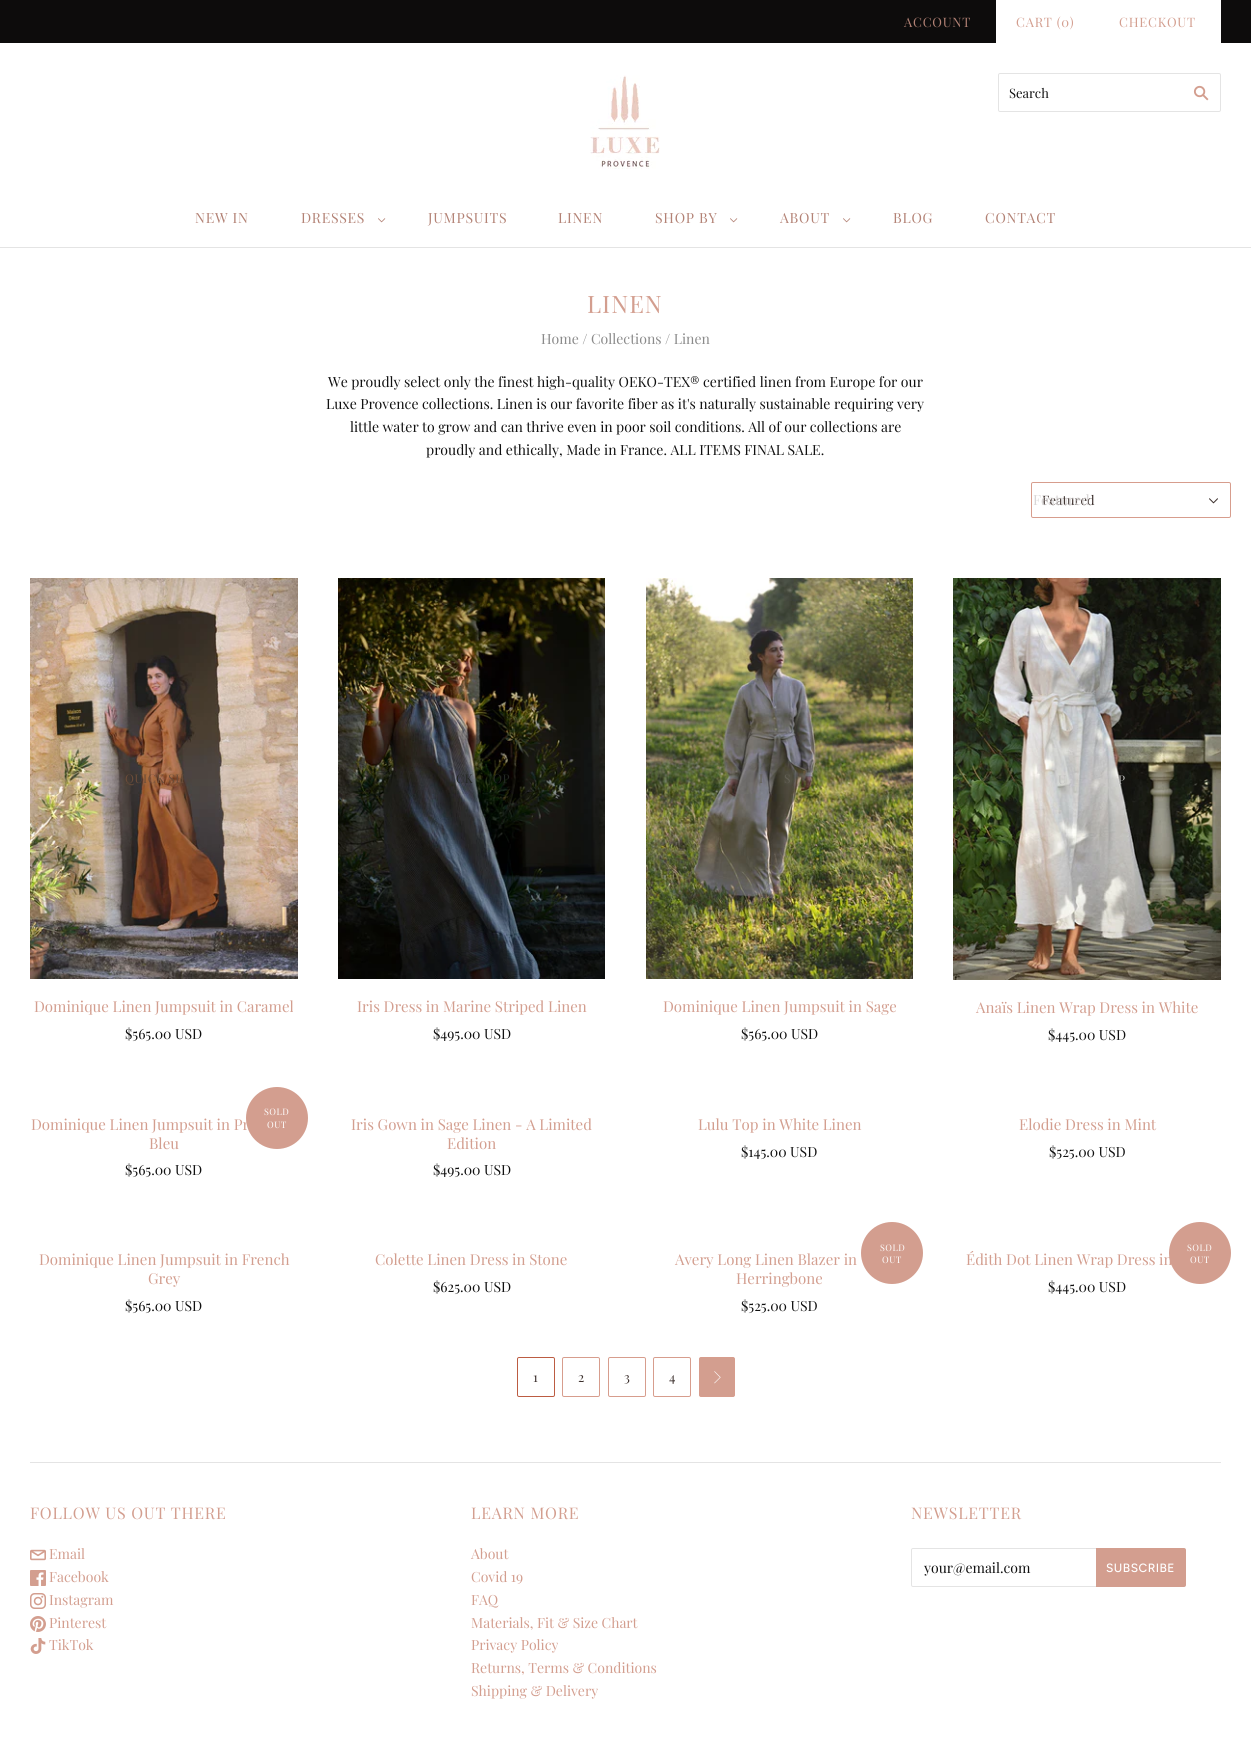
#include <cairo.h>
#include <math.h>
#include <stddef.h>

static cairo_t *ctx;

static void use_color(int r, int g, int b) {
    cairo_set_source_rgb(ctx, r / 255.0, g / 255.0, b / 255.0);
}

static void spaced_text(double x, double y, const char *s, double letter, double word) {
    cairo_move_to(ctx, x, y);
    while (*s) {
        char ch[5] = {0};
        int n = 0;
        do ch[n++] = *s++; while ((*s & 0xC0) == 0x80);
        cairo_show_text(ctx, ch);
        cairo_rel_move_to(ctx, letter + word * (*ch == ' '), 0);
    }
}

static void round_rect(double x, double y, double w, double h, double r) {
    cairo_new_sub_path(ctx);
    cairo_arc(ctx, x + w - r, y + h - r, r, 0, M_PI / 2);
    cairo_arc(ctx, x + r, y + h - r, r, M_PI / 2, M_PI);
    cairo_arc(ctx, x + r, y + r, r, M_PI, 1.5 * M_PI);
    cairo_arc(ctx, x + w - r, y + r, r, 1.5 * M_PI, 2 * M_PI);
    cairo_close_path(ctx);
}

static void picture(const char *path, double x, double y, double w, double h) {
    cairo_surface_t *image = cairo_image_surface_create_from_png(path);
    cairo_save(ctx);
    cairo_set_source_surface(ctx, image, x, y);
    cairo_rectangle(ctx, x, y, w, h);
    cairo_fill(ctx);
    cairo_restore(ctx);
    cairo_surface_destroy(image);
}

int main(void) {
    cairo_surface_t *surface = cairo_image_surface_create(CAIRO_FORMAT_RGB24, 1251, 1738);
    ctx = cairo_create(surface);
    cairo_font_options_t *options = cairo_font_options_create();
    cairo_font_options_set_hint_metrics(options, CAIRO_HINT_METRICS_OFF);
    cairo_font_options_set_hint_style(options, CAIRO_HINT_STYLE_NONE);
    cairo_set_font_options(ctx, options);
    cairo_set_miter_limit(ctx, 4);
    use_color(255, 255, 255);
    cairo_paint(ctx);
    use_color(228, 228, 228);
    cairo_rectangle(ctx, 0, 247, 1251, 1);
    cairo_fill(ctx);
    use_color(13, 12, 12);
    cairo_rectangle(ctx, 0, 0, 1251, 43);
    cairo_fill(ctx);
    cairo_select_font_face(ctx, "Playfair Display", CAIRO_FONT_SLANT_NORMAL, CAIRO_FONT_WEIGHT_NORMAL);
    cairo_set_font_size(ctx, 13);
    use_color(179, 130, 117);
    spaced_text(904, 27, "ACCOUNT", 0.75, 0);
    use_color(255, 255, 255);
    cairo_rectangle(ctx, 996, 0, 225, 43);
    cairo_fill(ctx);
    use_color(211, 158, 143);
    spaced_text(1016, 27, "CART (0)", 0.75, 0);
    spaced_text(1119, 27, "CHECKOUT", 0.75, 0);
    picture("img1.png", 590, 75, 70, 94);
    round_rect(998.5, 73.5, 222, 38, 1.5);
    use_color(228, 228, 228);
    cairo_set_line_width(ctx, 1);
    cairo_stroke(ctx);
    use_color(16, 16, 16);
    cairo_move_to(ctx, 1009, 98);
    cairo_show_text(ctx, "Search");
    picture("img2.png", 1193, 85, 16, 16);
    cairo_set_font_size(ctx, 14);
    use_color(179, 130, 117);
    spaced_text(195, 223, "NEW IN", 0.75, 0);
    spaced_text(301, 223, "DRESSES", 0.75, 0);
    picture("img3.png", 378, 218, 8, 5);
    spaced_text(428, 223, "JUMPSUITS", 0.75, 0);
    spaced_text(558, 223, "LINEN", 0.75, 0);
    spaced_text(655, 223, "SHOP BY", 0.75, 0);
    picture("img3.png", 730, 218, 8, 5);
    spaced_text(780, 223, "ABOUT", 0.75, 0);
    picture("img3.png", 843, 218, 8, 5);
    spaced_text(893, 223, "BLOG", 0.75, 0);
    spaced_text(985, 223, "CONTACT", 0.75, 0);
    cairo_set_font_size(ctx, 24);
    use_color(211, 158, 143);
    spaced_text(587, 313, "LINEN", 1, 0);
    cairo_set_font_size(ctx, 14);
    use_color(138, 138, 138);
    cairo_move_to(ctx, 541, 344);
    cairo_show_text(ctx, "Home / Collections / Linen");
    use_color(16, 16, 16);
    cairo_move_to(ctx, 328, 387);
    cairo_show_text(ctx, "We proudly select only the finest high-quality OEKO-TEX® certified linen from Europe for our");
    cairo_move_to(ctx, 326, 409);
    cairo_show_text(ctx, "Luxe Provence collections. Linen is our favorite fiber as it's naturally sustainable requiring very");
    cairo_move_to(ctx, 350, 432);
    cairo_show_text(ctx, "little water to grow and can thrive even in poor soil conditions. All of our collections are");
    cairo_move_to(ctx, 426, 455);
    cairo_show_text(ctx, "proudly and ethically, Made in France. ALL ITEMS FINAL SALE.");
    round_rect(1031.5, 482.5, 199, 35, 1.5);
    use_color(215, 157, 141);
    cairo_stroke(ctx);
    cairo_set_font_size(ctx, 13);
    use_color(59, 47, 44);
    cairo_move_to(ctx, 1042, 505);
    cairo_show_text(ctx, "Featured");
    cairo_set_font_size(ctx, 14);
    use_color(217, 214, 214);
    cairo_move_to(ctx, 1033, 505);
    cairo_show_text(ctx, "Featured");
    picture("img4.png", 1209, 498, 9, 6);
    picture("img5.png", 30, 578, 268, 401);
    cairo_set_font_size(ctx, 12);
    use_color(106, 76, 57);
    spaced_text(125, 783, "QUICK SH", 0.5, 0);
    cairo_set_font_size(ctx, 15);
    use_color(211, 158, 143);
    cairo_move_to(ctx, 34, 1012);
    cairo_show_text(ctx, "Dominique Linen Jumpsuit in Caramel");
    cairo_set_font_size(ctx, 14);
    use_color(16, 16, 16);
    cairo_move_to(ctx, 125, 1039);
    cairo_show_text(ctx, "$565.00 USD");
    picture("img6.png", 338, 578, 267, 401);
    cairo_set_font_size(ctx, 12);
    use_color(35, 39, 35);
    spaced_text(456, 783, "CK", 0.5, 0);
    spaced_text(493, 783, "OP", 0.5, 0);
    cairo_set_font_size(ctx, 15);
    use_color(211, 158, 143);
    cairo_move_to(ctx, 357, 1012);
    cairo_show_text(ctx, "Iris Dress in Marine Striped Linen");
    cairo_set_font_size(ctx, 14);
    use_color(16, 16, 16);
    cairo_move_to(ctx, 433, 1039);
    cairo_show_text(ctx, "$495.00 USD");
    picture("img7.png", 646, 578, 267, 401);
    cairo_set_font_size(ctx, 12);
    use_color(99, 96, 85);
    spaced_text(759, 783, "I", 0.5, 0);
    spaced_text(784, 783, "S", 0.5, 0);
    cairo_set_font_size(ctx, 15);
    use_color(211, 158, 143);
    cairo_move_to(ctx, 663, 1012);
    cairo_show_text(ctx, "Dominique Linen Jumpsuit in Sage");
    cairo_set_font_size(ctx, 14);
    use_color(16, 16, 16);
    cairo_move_to(ctx, 741, 1039);
    cairo_show_text(ctx, "$565.00 USD");
    picture("img8.png", 953, 578, 268, 402);
    cairo_set_font_size(ctx, 12);
    use_color(188, 188, 187);
    spaced_text(1058, 784, "U", 0.5, 0);
    spaced_text(1118, 784, "P", 0.5, 0);
    cairo_set_font_size(ctx, 15);
    use_color(211, 158, 143);
    cairo_move_to(ctx, 976, 1013);
    cairo_show_text(ctx, "Anaïs Linen Wrap Dress in White");
    cairo_set_font_size(ctx, 14);
    use_color(16, 16, 16);
    cairo_move_to(ctx, 1048, 1040);
    cairo_show_text(ctx, "$445.00 USD");
    cairo_set_font_size(ctx, 15);
    use_color(211, 158, 143);
    cairo_move_to(ctx, 31, 1130);
    cairo_show_text(ctx, "Dominique Linen Jumpsuit in Pr");
    cairo_move_to(ctx, 149, 1149);
    cairo_show_text(ctx, "Bleu");
    cairo_set_font_size(ctx, 14);
    use_color(16, 16, 16);
    cairo_move_to(ctx, 125, 1175);
    cairo_show_text(ctx, "$565.00 USD");
    use_color(211, 158, 143);
    cairo_new_path(ctx);
    cairo_arc(ctx, 277, 1118, 31, 0, 2 * M_PI);
    cairo_fill(ctx);
    cairo_set_font_size(ctx, 9);
    use_color(255, 255, 255);
    spaced_text(264, 1115, "SOLD", 0.5, 0);
    spaced_text(267, 1128, "OUT", 0.5, 0);
    cairo_set_font_size(ctx, 15);
    use_color(211, 158, 143);
    cairo_move_to(ctx, 351, 1130);
    cairo_show_text(ctx, "Iris Gown in Sage Linen - A Limited");
    cairo_move_to(ctx, 447, 1149);
    cairo_show_text(ctx, "Edition");
    cairo_set_font_size(ctx, 14);
    use_color(16, 16, 16);
    cairo_move_to(ctx, 433, 1175);
    cairo_show_text(ctx, "$495.00 USD");
    cairo_set_font_size(ctx, 15);
    use_color(211, 158, 143);
    cairo_move_to(ctx, 698, 1130);
    cairo_show_text(ctx, "Lulu Top in White Linen");
    cairo_set_font_size(ctx, 14);
    use_color(16, 16, 16);
    cairo_move_to(ctx, 741, 1157);
    cairo_show_text(ctx, "$145.00 USD");
    cairo_set_font_size(ctx, 15);
    use_color(211, 158, 143);
    cairo_move_to(ctx, 1019, 1130);
    cairo_show_text(ctx, "Elodie Dress in Mint");
    cairo_set_font_size(ctx, 14);
    use_color(16, 16, 16);
    cairo_move_to(ctx, 1049, 1157);
    cairo_show_text(ctx, "$525.00 USD");
    cairo_set_font_size(ctx, 15);
    use_color(211, 158, 143);
    cairo_move_to(ctx, 39, 1265);
    cairo_show_text(ctx, "Dominique Linen Jumpsuit in French");
    cairo_move_to(ctx, 148, 1284);
    cairo_show_text(ctx, "Grey");
    cairo_set_font_size(ctx, 14);
    use_color(16, 16, 16);
    cairo_move_to(ctx, 125, 1311);
    cairo_show_text(ctx, "$565.00 USD");
    cairo_set_font_size(ctx, 15);
    use_color(211, 158, 143);
    cairo_move_to(ctx, 375, 1265);
    cairo_show_text(ctx, "Colette Linen Dress in Stone");
    cairo_set_font_size(ctx, 14);
    use_color(16, 16, 16);
    cairo_move_to(ctx, 433, 1292);
    cairo_show_text(ctx, "$625.00 USD");
    cairo_set_font_size(ctx, 15);
    use_color(211, 158, 143);
    cairo_move_to(ctx, 675, 1265);
    cairo_show_text(ctx, "Avery Long Linen Blazer in");
    cairo_move_to(ctx, 736, 1284);
    cairo_show_text(ctx, "Herringbone");
    cairo_set_font_size(ctx, 14);
    use_color(16, 16, 16);
    cairo_move_to(ctx, 741, 1311);
    cairo_show_text(ctx, "$525.00 USD");
    use_color(211, 158, 143);
    cairo_new_path(ctx);
    cairo_arc(ctx, 892, 1253, 31, 0, 2 * M_PI);
    cairo_fill(ctx);
    cairo_set_font_size(ctx, 9);
    use_color(255, 255, 255);
    spaced_text(880, 1251, "SOLD", 0.5, 0);
    spaced_text(882, 1263, "OUT", 0.5, 0);
    cairo_set_font_size(ctx, 15);
    use_color(211, 158, 143);
    cairo_move_to(ctx, 966, 1265);
    cairo_show_text(ctx, "Édith Dot Linen Wrap Dress in");
    cairo_set_font_size(ctx, 14);
    use_color(16, 16, 16);
    cairo_move_to(ctx, 1048, 1292);
    cairo_show_text(ctx, "$445.00 USD");
    use_color(211, 158, 143);
    cairo_new_path(ctx);
    cairo_arc(ctx, 1200, 1253, 31, 0, 2 * M_PI);
    cairo_fill(ctx);
    cairo_set_font_size(ctx, 9);
    use_color(255, 255, 255);
    spaced_text(1187, 1251, "SOLD", 0.5, 0);
    spaced_text(1190, 1263, "OUT", 0.5, 0);
    round_rect(517.5, 1357.5, 37, 39, 1.5);
    use_color(188, 92, 66);
    cairo_stroke(ctx);
    cairo_set_font_size(ctx, 13);
    use_color(59, 47, 44);
    cairo_move_to(ctx, 533, 1382);
    cairo_show_text(ctx, "1");
    round_rect(562.5, 1357.5, 37, 39, 1.5);
    use_color(215, 157, 141);
    cairo_stroke(ctx);
    use_color(59, 47, 44);
    cairo_move_to(ctx, 578, 1382);
    cairo_show_text(ctx, "2");
    round_rect(608.5, 1357.5, 37, 39, 1.5);
    use_color(215, 157, 141);
    cairo_stroke(ctx);
    use_color(59, 47, 44);
    cairo_move_to(ctx, 624, 1382);
    cairo_show_text(ctx, "3");
    round_rect(653.5, 1357.5, 37, 39, 1.5);
    use_color(215, 157, 141);
    cairo_stroke(ctx);
    use_color(59, 47, 44);
    cairo_move_to(ctx, 669, 1382);
    cairo_show_text(ctx, "4");
    use_color(211, 158, 143);
    round_rect(699.5, 1357.5, 35, 39, 1.5);
    cairo_fill_preserve(ctx);
    use_color(215, 157, 141);
    cairo_stroke(ctx);
    picture("img9.png", 714, 1371, 7, 13);
    use_color(228, 228, 228);
    cairo_rectangle(ctx, 30, 1462, 1191, 1);
    cairo_fill(ctx);
    cairo_set_font_size(ctx, 16);
    use_color(211, 158, 143);
    spaced_text(30, 1519, "FOLLOW US OUT THERE", 0.75, 0);
    picture("img10.png", 30, 1549, 16, 12);
    cairo_set_font_size(ctx, 14);
    cairo_move_to(ctx, 49, 1559);
    cairo_show_text(ctx, "Email");
    picture("img11.png", 30, 1570, 16, 16);
    cairo_move_to(ctx, 49, 1582);
    cairo_show_text(ctx, "Facebook");
    picture("img12.png", 30, 1593, 16, 16);
    cairo_move_to(ctx, 49, 1605);
    cairo_show_text(ctx, "Instagram");
    picture("img13.png", 30, 1616, 16, 16);
    cairo_move_to(ctx, 49, 1628);
    cairo_show_text(ctx, "Pinterest");
    picture("img14.png", 30, 1638, 16, 16);
    cairo_move_to(ctx, 49, 1650);
    cairo_show_text(ctx, "TikTok");
    cairo_set_font_size(ctx, 16);
    spaced_text(471, 1519, "LEARN MORE", 0.75, 0);
    cairo_set_font_size(ctx, 14);
    cairo_move_to(ctx, 471, 1559);
    cairo_show_text(ctx, "About");
    cairo_move_to(ctx, 471, 1582);
    cairo_show_text(ctx, "Covid 19");
    cairo_move_to(ctx, 471, 1605);
    cairo_show_text(ctx, "FAQ");
    cairo_move_to(ctx, 471, 1628);
    cairo_show_text(ctx, "Materials, Fit & Size Chart");
    cairo_move_to(ctx, 471, 1650);
    cairo_show_text(ctx, "Privacy Policy");
    cairo_move_to(ctx, 471, 1673);
    cairo_show_text(ctx, "Returns, Terms & Conditions");
    cairo_move_to(ctx, 471, 1696);
    cairo_show_text(ctx, "Shipping & Delivery");
    cairo_set_font_size(ctx, 16);
    spaced_text(911, 1519, "NEWSLETTER", 0.75, 0);
    round_rect(911.5, 1548.5, 274, 38, 1.5);
    use_color(228, 228, 228);
    cairo_stroke(ctx);
    cairo_set_font_size(ctx, 14);
    use_color(16, 16, 16);
    cairo_move_to(ctx, 924, 1573);
    cairo_show_text(ctx, "your@email.com");
    use_color(211, 158, 143);
    cairo_new_path(ctx);
    cairo_move_to(ctx, 1096, 1548);
    cairo_line_to(ctx, 1184, 1548);
    cairo_curve_to(ctx, 1185, 1548, 1186, 1549, 1186, 1550);
    cairo_line_to(ctx, 1186, 1585);
    cairo_curve_to(ctx, 1186, 1586, 1185, 1587, 1184, 1587);
    cairo_line_to(ctx, 1096, 1587);
    cairo_close_path(ctx);
    cairo_fill(ctx);
    cairo_select_font_face(ctx, "Figtree Medium", CAIRO_FONT_SLANT_NORMAL, CAIRO_FONT_WEIGHT_NORMAL);
    cairo_set_font_size(ctx, 12);
    use_color(255, 255, 255);
    spaced_text(1106, 1572, "SUBSCRIBE", 0.5, 0);
    cairo_surface_write_to_png(surface, "result.png");
    cairo_font_options_destroy(options);
    cairo_destroy(ctx);
    cairo_surface_destroy(surface);
    return 0;
}
